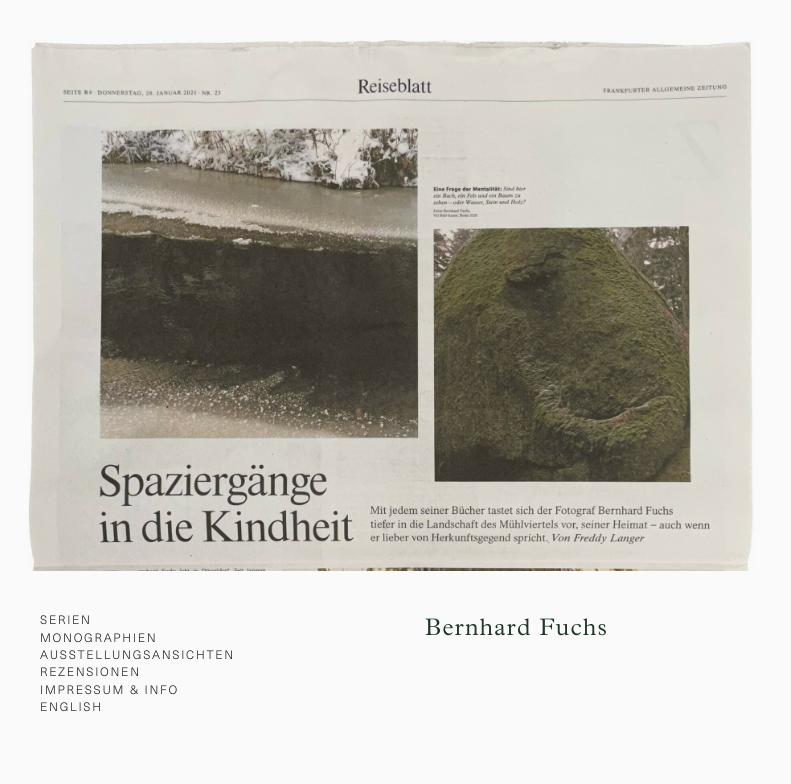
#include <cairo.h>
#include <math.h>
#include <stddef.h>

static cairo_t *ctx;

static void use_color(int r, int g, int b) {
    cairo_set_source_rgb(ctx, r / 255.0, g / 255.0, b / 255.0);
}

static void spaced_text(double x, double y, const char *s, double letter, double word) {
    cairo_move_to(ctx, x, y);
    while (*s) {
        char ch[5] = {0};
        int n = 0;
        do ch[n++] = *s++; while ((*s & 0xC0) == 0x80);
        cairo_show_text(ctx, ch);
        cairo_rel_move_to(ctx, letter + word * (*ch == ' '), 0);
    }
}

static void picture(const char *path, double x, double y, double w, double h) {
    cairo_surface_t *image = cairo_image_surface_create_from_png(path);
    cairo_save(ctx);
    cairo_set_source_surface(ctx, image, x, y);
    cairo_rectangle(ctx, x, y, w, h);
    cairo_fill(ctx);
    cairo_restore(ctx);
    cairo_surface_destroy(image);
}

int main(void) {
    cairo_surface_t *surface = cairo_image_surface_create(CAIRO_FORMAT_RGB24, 791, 784);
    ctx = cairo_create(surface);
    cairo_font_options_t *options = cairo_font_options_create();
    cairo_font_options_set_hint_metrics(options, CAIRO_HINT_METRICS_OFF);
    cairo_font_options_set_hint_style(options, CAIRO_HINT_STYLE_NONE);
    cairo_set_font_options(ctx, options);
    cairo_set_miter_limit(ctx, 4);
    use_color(250, 250, 250);
    cairo_paint(ctx);
    picture("img1.png", 28, 40, 727, 531);
    cairo_select_font_face(ctx, "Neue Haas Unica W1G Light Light", CAIRO_FONT_SLANT_NORMAL, CAIRO_FONT_WEIGHT_NORMAL);
    cairo_set_font_size(ctx, 12);
    use_color(33, 37, 41);
    spaced_text(40, 624, "SERIEN", 1.7, 0);
    spaced_text(40, 642, "MONOGRAPHIEN", 1.7, 0);
    spaced_text(40, 659, "AUSSTELLUNGSANSICHTEN", 1.7, 0);
    spaced_text(40, 676, "REZENSIONEN", 1.7, 0);
    spaced_text(40, 694, "IMPRESSUM & INFO", 1.7, 0);
    spaced_text(40, 711, "ENGLISH", 1.7, 0);
    cairo_select_font_face(ctx, "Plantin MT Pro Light", CAIRO_FONT_SLANT_NORMAL, CAIRO_FONT_WEIGHT_NORMAL);
    cairo_set_font_size(ctx, 24);
    use_color(31, 55, 40);
    spaced_text(425, 635, "Bernhard Fuchs", 1.25, 0);
    cairo_surface_write_to_png(surface, "result.png");
    cairo_font_options_destroy(options);
    cairo_destroy(ctx);
    cairo_surface_destroy(surface);
    return 0;
}
